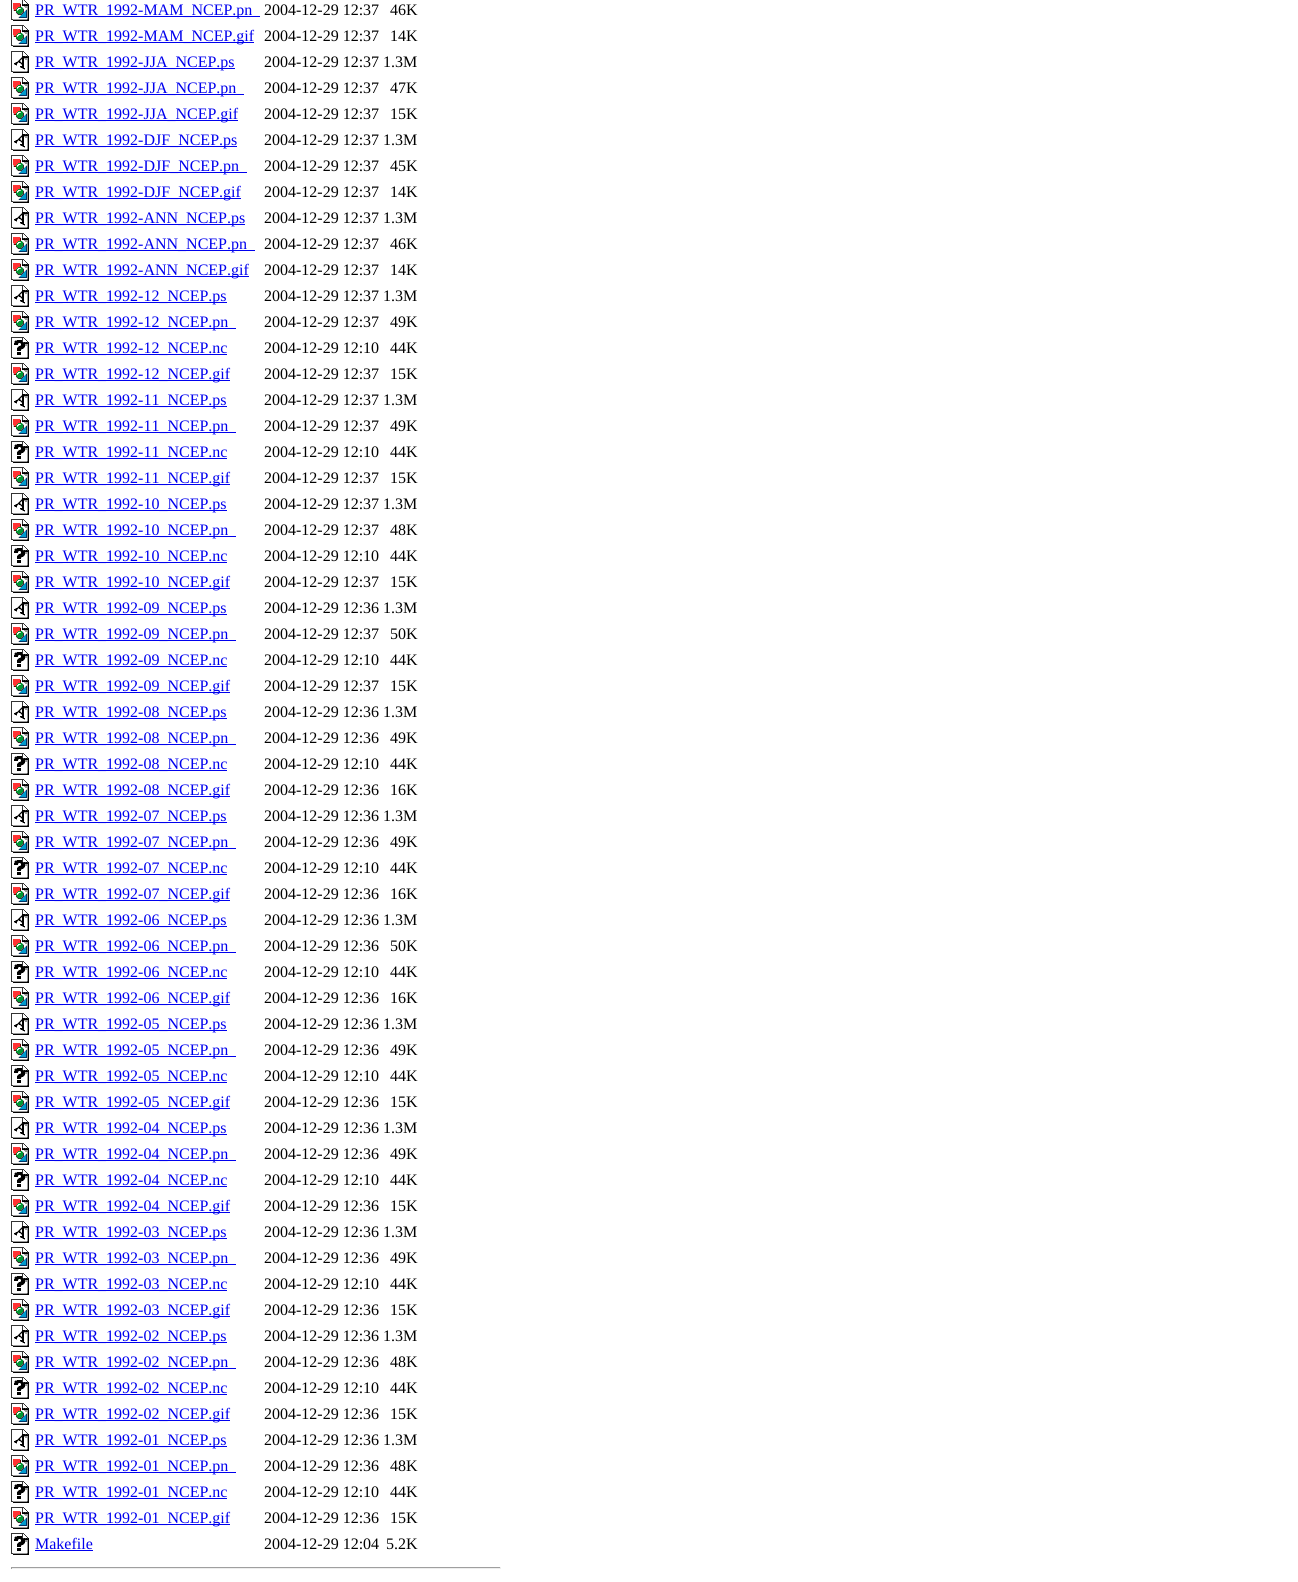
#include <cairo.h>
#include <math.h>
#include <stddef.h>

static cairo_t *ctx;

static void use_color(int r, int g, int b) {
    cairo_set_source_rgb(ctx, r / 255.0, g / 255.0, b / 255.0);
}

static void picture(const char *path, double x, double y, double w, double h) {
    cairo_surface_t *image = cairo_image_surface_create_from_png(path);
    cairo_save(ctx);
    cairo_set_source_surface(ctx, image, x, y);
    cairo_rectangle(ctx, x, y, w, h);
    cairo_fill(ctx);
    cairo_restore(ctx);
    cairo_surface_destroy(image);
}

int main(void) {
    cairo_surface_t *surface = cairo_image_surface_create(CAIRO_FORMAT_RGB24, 1298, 1582);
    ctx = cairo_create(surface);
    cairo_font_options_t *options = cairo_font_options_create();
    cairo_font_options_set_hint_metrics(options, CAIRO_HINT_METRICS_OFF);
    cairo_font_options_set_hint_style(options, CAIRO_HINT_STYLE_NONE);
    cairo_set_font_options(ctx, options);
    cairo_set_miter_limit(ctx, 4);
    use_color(255, 255, 255);
    cairo_paint(ctx);
    picture("img1.png", 11, 0, 18, 21);
    use_color(0, 0, 238);
    cairo_rectangle(ctx, 35, 16, 225, 1);
    cairo_fill(ctx);
    cairo_select_font_face(ctx, "Liberation Serif", CAIRO_FONT_SLANT_NORMAL, CAIRO_FONT_WEIGHT_NORMAL);
    cairo_set_font_size(ctx, 16);
    cairo_move_to(ctx, 35, 15);
    cairo_show_text(ctx, "PR_WTR_1992-MAM_NCEP.pn");
    use_color(0, 0, 0);
    cairo_move_to(ctx, 264, 15);
    cairo_show_text(ctx, "2004-12-29 12:37");
    cairo_move_to(ctx, 390, 15);
    cairo_show_text(ctx, "46K");
    picture("img2.png", 11, 25, 18, 22);
    use_color(0, 0, 238);
    cairo_rectangle(ctx, 35, 42, 219, 1);
    cairo_fill(ctx);
    cairo_move_to(ctx, 35, 41);
    cairo_show_text(ctx, "PR_WTR_1992-MAM_NCEP.gif");
    use_color(0, 0, 0);
    cairo_move_to(ctx, 264, 41);
    cairo_show_text(ctx, "2004-12-29 12:37");
    cairo_move_to(ctx, 390, 41);
    cairo_show_text(ctx, "14K");
    picture("img3.png", 11, 51, 18, 22);
    use_color(0, 0, 238);
    cairo_rectangle(ctx, 35, 68, 200, 1);
    cairo_fill(ctx);
    cairo_move_to(ctx, 35, 67);
    cairo_show_text(ctx, "PR_WTR_1992-JJA_NCEP.ps");
    use_color(0, 0, 0);
    cairo_move_to(ctx, 264, 67);
    cairo_show_text(ctx, "2004-12-29 12:37 1.3M");
    picture("img2.png", 11, 77, 18, 22);
    use_color(0, 0, 238);
    cairo_rectangle(ctx, 35, 94, 209, 1);
    cairo_fill(ctx);
    cairo_move_to(ctx, 35, 93);
    cairo_show_text(ctx, "PR_WTR_1992-JJA_NCEP.pn");
    use_color(0, 0, 0);
    cairo_move_to(ctx, 264, 93);
    cairo_show_text(ctx, "2004-12-29 12:37");
    cairo_move_to(ctx, 390, 93);
    cairo_show_text(ctx, "47K");
    picture("img2.png", 11, 103, 18, 22);
    use_color(0, 0, 238);
    cairo_rectangle(ctx, 35, 120, 203, 1);
    cairo_fill(ctx);
    cairo_move_to(ctx, 35, 119);
    cairo_show_text(ctx, "PR_WTR_1992-JJA_NCEP.gif");
    use_color(0, 0, 0);
    cairo_move_to(ctx, 264, 119);
    cairo_show_text(ctx, "2004-12-29 12:37");
    cairo_move_to(ctx, 390, 119);
    cairo_show_text(ctx, "15K");
    picture("img3.png", 11, 129, 18, 22);
    use_color(0, 0, 238);
    cairo_rectangle(ctx, 35, 146, 202, 1);
    cairo_fill(ctx);
    cairo_move_to(ctx, 35, 145);
    cairo_show_text(ctx, "PR_WTR_1992-DJF_NCEP.ps");
    use_color(0, 0, 0);
    cairo_move_to(ctx, 264, 145);
    cairo_show_text(ctx, "2004-12-29 12:37 1.3M");
    picture("img2.png", 11, 155, 18, 22);
    use_color(0, 0, 238);
    cairo_rectangle(ctx, 35, 172, 212, 1);
    cairo_fill(ctx);
    cairo_move_to(ctx, 35, 171);
    cairo_show_text(ctx, "PR_WTR_1992-DJF_NCEP.pn");
    use_color(0, 0, 0);
    cairo_move_to(ctx, 264, 171);
    cairo_show_text(ctx, "2004-12-29 12:37");
    cairo_move_to(ctx, 390, 171);
    cairo_show_text(ctx, "45K");
    picture("img2.png", 11, 181, 18, 22);
    use_color(0, 0, 238);
    cairo_rectangle(ctx, 35, 198, 206, 1);
    cairo_fill(ctx);
    cairo_move_to(ctx, 35, 197);
    cairo_show_text(ctx, "PR_WTR_1992-DJF_NCEP.gif");
    use_color(0, 0, 0);
    cairo_move_to(ctx, 264, 197);
    cairo_show_text(ctx, "2004-12-29 12:37");
    cairo_move_to(ctx, 390, 197);
    cairo_show_text(ctx, "14K");
    picture("img3.png", 11, 207, 18, 22);
    use_color(0, 0, 238);
    cairo_rectangle(ctx, 35, 224, 210, 1);
    cairo_fill(ctx);
    cairo_move_to(ctx, 35, 223);
    cairo_show_text(ctx, "PR_WTR_1992-ANN_NCEP.ps");
    use_color(0, 0, 0);
    cairo_move_to(ctx, 264, 223);
    cairo_show_text(ctx, "2004-12-29 12:37 1.3M");
    picture("img2.png", 11, 233, 18, 22);
    use_color(0, 0, 238);
    cairo_rectangle(ctx, 35, 250, 220, 1);
    cairo_fill(ctx);
    cairo_move_to(ctx, 35, 249);
    cairo_show_text(ctx, "PR_WTR_1992-ANN_NCEP.pn");
    use_color(0, 0, 0);
    cairo_move_to(ctx, 264, 249);
    cairo_show_text(ctx, "2004-12-29 12:37");
    cairo_move_to(ctx, 390, 249);
    cairo_show_text(ctx, "46K");
    picture("img2.png", 11, 259, 18, 22);
    use_color(0, 0, 238);
    cairo_rectangle(ctx, 35, 276, 214, 1);
    cairo_fill(ctx);
    cairo_move_to(ctx, 35, 275);
    cairo_show_text(ctx, "PR_WTR_1992-ANN_NCEP.gif");
    use_color(0, 0, 0);
    cairo_move_to(ctx, 264, 275);
    cairo_show_text(ctx, "2004-12-29 12:37");
    cairo_move_to(ctx, 390, 275);
    cairo_show_text(ctx, "14K");
    picture("img3.png", 11, 285, 18, 22);
    use_color(0, 0, 238);
    cairo_rectangle(ctx, 35, 302, 192, 1);
    cairo_fill(ctx);
    cairo_move_to(ctx, 35, 301);
    cairo_show_text(ctx, "PR_WTR_1992-12_NCEP.ps");
    use_color(0, 0, 0);
    cairo_move_to(ctx, 264, 301);
    cairo_show_text(ctx, "2004-12-29 12:37 1.3M");
    picture("img2.png", 11, 311, 18, 22);
    use_color(0, 0, 238);
    cairo_rectangle(ctx, 35, 328, 201, 1);
    cairo_fill(ctx);
    cairo_move_to(ctx, 35, 327);
    cairo_show_text(ctx, "PR_WTR_1992-12_NCEP.pn");
    use_color(0, 0, 0);
    cairo_move_to(ctx, 264, 327);
    cairo_show_text(ctx, "2004-12-29 12:37");
    cairo_move_to(ctx, 390, 327);
    cairo_show_text(ctx, "49K");
    picture("img4.png", 11, 337, 18, 22);
    use_color(0, 0, 238);
    cairo_rectangle(ctx, 35, 354, 192, 1);
    cairo_fill(ctx);
    cairo_move_to(ctx, 35, 353);
    cairo_show_text(ctx, "PR_WTR_1992-12_NCEP.nc");
    use_color(0, 0, 0);
    cairo_move_to(ctx, 264, 353);
    cairo_show_text(ctx, "2004-12-29 12:10");
    cairo_move_to(ctx, 390, 353);
    cairo_show_text(ctx, "44K");
    picture("img2.png", 11, 363, 18, 22);
    use_color(0, 0, 238);
    cairo_rectangle(ctx, 35, 380, 195, 1);
    cairo_fill(ctx);
    cairo_move_to(ctx, 35, 379);
    cairo_show_text(ctx, "PR_WTR_1992-12_NCEP.gif");
    use_color(0, 0, 0);
    cairo_move_to(ctx, 264, 379);
    cairo_show_text(ctx, "2004-12-29 12:37");
    cairo_move_to(ctx, 390, 379);
    cairo_show_text(ctx, "15K");
    picture("img3.png", 11, 389, 18, 22);
    use_color(0, 0, 238);
    cairo_rectangle(ctx, 35, 406, 192, 1);
    cairo_fill(ctx);
    cairo_move_to(ctx, 35, 405);
    cairo_show_text(ctx, "PR_WTR_1992-11_NCEP.ps");
    use_color(0, 0, 0);
    cairo_move_to(ctx, 264, 405);
    cairo_show_text(ctx, "2004-12-29 12:37 1.3M");
    picture("img2.png", 11, 415, 18, 22);
    use_color(0, 0, 238);
    cairo_rectangle(ctx, 35, 432, 201, 1);
    cairo_fill(ctx);
    cairo_move_to(ctx, 35, 431);
    cairo_show_text(ctx, "PR_WTR_1992-11_NCEP.pn");
    use_color(0, 0, 0);
    cairo_move_to(ctx, 264, 431);
    cairo_show_text(ctx, "2004-12-29 12:37");
    cairo_move_to(ctx, 390, 431);
    cairo_show_text(ctx, "49K");
    picture("img4.png", 11, 441, 18, 22);
    use_color(0, 0, 238);
    cairo_rectangle(ctx, 35, 458, 192, 1);
    cairo_fill(ctx);
    cairo_move_to(ctx, 35, 457);
    cairo_show_text(ctx, "PR_WTR_1992-11_NCEP.nc");
    use_color(0, 0, 0);
    cairo_move_to(ctx, 264, 457);
    cairo_show_text(ctx, "2004-12-29 12:10");
    cairo_move_to(ctx, 390, 457);
    cairo_show_text(ctx, "44K");
    picture("img2.png", 11, 467, 18, 22);
    use_color(0, 0, 238);
    cairo_rectangle(ctx, 35, 484, 195, 1);
    cairo_fill(ctx);
    cairo_move_to(ctx, 35, 483);
    cairo_show_text(ctx, "PR_WTR_1992-11_NCEP.gif");
    use_color(0, 0, 0);
    cairo_move_to(ctx, 264, 483);
    cairo_show_text(ctx, "2004-12-29 12:37");
    cairo_move_to(ctx, 390, 483);
    cairo_show_text(ctx, "15K");
    picture("img3.png", 11, 493, 18, 22);
    use_color(0, 0, 238);
    cairo_rectangle(ctx, 35, 510, 192, 1);
    cairo_fill(ctx);
    cairo_move_to(ctx, 35, 509);
    cairo_show_text(ctx, "PR_WTR_1992-10_NCEP.ps");
    use_color(0, 0, 0);
    cairo_move_to(ctx, 264, 509);
    cairo_show_text(ctx, "2004-12-29 12:37 1.3M");
    picture("img2.png", 11, 519, 18, 22);
    use_color(0, 0, 238);
    cairo_rectangle(ctx, 35, 536, 201, 1);
    cairo_fill(ctx);
    cairo_move_to(ctx, 35, 535);
    cairo_show_text(ctx, "PR_WTR_1992-10_NCEP.pn");
    use_color(0, 0, 0);
    cairo_move_to(ctx, 264, 535);
    cairo_show_text(ctx, "2004-12-29 12:37");
    cairo_move_to(ctx, 390, 535);
    cairo_show_text(ctx, "48K");
    picture("img4.png", 11, 545, 18, 22);
    use_color(0, 0, 238);
    cairo_rectangle(ctx, 35, 562, 192, 1);
    cairo_fill(ctx);
    cairo_move_to(ctx, 35, 561);
    cairo_show_text(ctx, "PR_WTR_1992-10_NCEP.nc");
    use_color(0, 0, 0);
    cairo_move_to(ctx, 264, 561);
    cairo_show_text(ctx, "2004-12-29 12:10");
    cairo_move_to(ctx, 390, 561);
    cairo_show_text(ctx, "44K");
    picture("img2.png", 11, 571, 18, 22);
    use_color(0, 0, 238);
    cairo_rectangle(ctx, 35, 588, 195, 1);
    cairo_fill(ctx);
    cairo_move_to(ctx, 35, 587);
    cairo_show_text(ctx, "PR_WTR_1992-10_NCEP.gif");
    use_color(0, 0, 0);
    cairo_move_to(ctx, 264, 587);
    cairo_show_text(ctx, "2004-12-29 12:37");
    cairo_move_to(ctx, 390, 587);
    cairo_show_text(ctx, "15K");
    picture("img3.png", 11, 597, 18, 22);
    use_color(0, 0, 238);
    cairo_rectangle(ctx, 35, 614, 192, 1);
    cairo_fill(ctx);
    cairo_move_to(ctx, 35, 613);
    cairo_show_text(ctx, "PR_WTR_1992-09_NCEP.ps");
    use_color(0, 0, 0);
    cairo_move_to(ctx, 264, 613);
    cairo_show_text(ctx, "2004-12-29 12:36 1.3M");
    picture("img2.png", 11, 623, 18, 22);
    use_color(0, 0, 238);
    cairo_rectangle(ctx, 35, 640, 201, 1);
    cairo_fill(ctx);
    cairo_move_to(ctx, 35, 639);
    cairo_show_text(ctx, "PR_WTR_1992-09_NCEP.pn");
    use_color(0, 0, 0);
    cairo_move_to(ctx, 264, 639);
    cairo_show_text(ctx, "2004-12-29 12:37");
    cairo_move_to(ctx, 390, 639);
    cairo_show_text(ctx, "50K");
    picture("img4.png", 11, 649, 18, 22);
    use_color(0, 0, 238);
    cairo_rectangle(ctx, 35, 666, 192, 1);
    cairo_fill(ctx);
    cairo_move_to(ctx, 35, 665);
    cairo_show_text(ctx, "PR_WTR_1992-09_NCEP.nc");
    use_color(0, 0, 0);
    cairo_move_to(ctx, 264, 665);
    cairo_show_text(ctx, "2004-12-29 12:10");
    cairo_move_to(ctx, 390, 665);
    cairo_show_text(ctx, "44K");
    picture("img2.png", 11, 675, 18, 22);
    use_color(0, 0, 238);
    cairo_rectangle(ctx, 35, 692, 195, 1);
    cairo_fill(ctx);
    cairo_move_to(ctx, 35, 691);
    cairo_show_text(ctx, "PR_WTR_1992-09_NCEP.gif");
    use_color(0, 0, 0);
    cairo_move_to(ctx, 264, 691);
    cairo_show_text(ctx, "2004-12-29 12:37");
    cairo_move_to(ctx, 390, 691);
    cairo_show_text(ctx, "15K");
    picture("img3.png", 11, 701, 18, 22);
    use_color(0, 0, 238);
    cairo_rectangle(ctx, 35, 718, 192, 1);
    cairo_fill(ctx);
    cairo_move_to(ctx, 35, 717);
    cairo_show_text(ctx, "PR_WTR_1992-08_NCEP.ps");
    use_color(0, 0, 0);
    cairo_move_to(ctx, 264, 717);
    cairo_show_text(ctx, "2004-12-29 12:36 1.3M");
    picture("img2.png", 11, 727, 18, 22);
    use_color(0, 0, 238);
    cairo_rectangle(ctx, 35, 744, 201, 1);
    cairo_fill(ctx);
    cairo_move_to(ctx, 35, 743);
    cairo_show_text(ctx, "PR_WTR_1992-08_NCEP.pn");
    use_color(0, 0, 0);
    cairo_move_to(ctx, 264, 743);
    cairo_show_text(ctx, "2004-12-29 12:36");
    cairo_move_to(ctx, 390, 743);
    cairo_show_text(ctx, "49K");
    picture("img4.png", 11, 753, 18, 22);
    use_color(0, 0, 238);
    cairo_rectangle(ctx, 35, 770, 192, 1);
    cairo_fill(ctx);
    cairo_move_to(ctx, 35, 769);
    cairo_show_text(ctx, "PR_WTR_1992-08_NCEP.nc");
    use_color(0, 0, 0);
    cairo_move_to(ctx, 264, 769);
    cairo_show_text(ctx, "2004-12-29 12:10");
    cairo_move_to(ctx, 390, 769);
    cairo_show_text(ctx, "44K");
    picture("img2.png", 11, 779, 18, 22);
    use_color(0, 0, 238);
    cairo_rectangle(ctx, 35, 796, 195, 1);
    cairo_fill(ctx);
    cairo_move_to(ctx, 35, 795);
    cairo_show_text(ctx, "PR_WTR_1992-08_NCEP.gif");
    use_color(0, 0, 0);
    cairo_move_to(ctx, 264, 795);
    cairo_show_text(ctx, "2004-12-29 12:36");
    cairo_move_to(ctx, 390, 795);
    cairo_show_text(ctx, "16K");
    picture("img3.png", 11, 805, 18, 22);
    use_color(0, 0, 238);
    cairo_rectangle(ctx, 35, 822, 192, 1);
    cairo_fill(ctx);
    cairo_move_to(ctx, 35, 821);
    cairo_show_text(ctx, "PR_WTR_1992-07_NCEP.ps");
    use_color(0, 0, 0);
    cairo_move_to(ctx, 264, 821);
    cairo_show_text(ctx, "2004-12-29 12:36 1.3M");
    picture("img2.png", 11, 831, 18, 22);
    use_color(0, 0, 238);
    cairo_rectangle(ctx, 35, 848, 201, 1);
    cairo_fill(ctx);
    cairo_move_to(ctx, 35, 847);
    cairo_show_text(ctx, "PR_WTR_1992-07_NCEP.pn");
    use_color(0, 0, 0);
    cairo_move_to(ctx, 264, 847);
    cairo_show_text(ctx, "2004-12-29 12:36");
    cairo_move_to(ctx, 390, 847);
    cairo_show_text(ctx, "49K");
    picture("img4.png", 11, 857, 18, 22);
    use_color(0, 0, 238);
    cairo_rectangle(ctx, 35, 874, 192, 1);
    cairo_fill(ctx);
    cairo_move_to(ctx, 35, 873);
    cairo_show_text(ctx, "PR_WTR_1992-07_NCEP.nc");
    use_color(0, 0, 0);
    cairo_move_to(ctx, 264, 873);
    cairo_show_text(ctx, "2004-12-29 12:10");
    cairo_move_to(ctx, 390, 873);
    cairo_show_text(ctx, "44K");
    picture("img2.png", 11, 883, 18, 22);
    use_color(0, 0, 238);
    cairo_rectangle(ctx, 35, 900, 195, 1);
    cairo_fill(ctx);
    cairo_move_to(ctx, 35, 899);
    cairo_show_text(ctx, "PR_WTR_1992-07_NCEP.gif");
    use_color(0, 0, 0);
    cairo_move_to(ctx, 264, 899);
    cairo_show_text(ctx, "2004-12-29 12:36");
    cairo_move_to(ctx, 390, 899);
    cairo_show_text(ctx, "16K");
    picture("img3.png", 11, 909, 18, 22);
    use_color(0, 0, 238);
    cairo_rectangle(ctx, 35, 926, 192, 1);
    cairo_fill(ctx);
    cairo_move_to(ctx, 35, 925);
    cairo_show_text(ctx, "PR_WTR_1992-06_NCEP.ps");
    use_color(0, 0, 0);
    cairo_move_to(ctx, 264, 925);
    cairo_show_text(ctx, "2004-12-29 12:36 1.3M");
    picture("img2.png", 11, 935, 18, 22);
    use_color(0, 0, 238);
    cairo_rectangle(ctx, 35, 952, 201, 1);
    cairo_fill(ctx);
    cairo_move_to(ctx, 35, 951);
    cairo_show_text(ctx, "PR_WTR_1992-06_NCEP.pn");
    use_color(0, 0, 0);
    cairo_move_to(ctx, 264, 951);
    cairo_show_text(ctx, "2004-12-29 12:36");
    cairo_move_to(ctx, 390, 951);
    cairo_show_text(ctx, "50K");
    picture("img4.png", 11, 961, 18, 22);
    use_color(0, 0, 238);
    cairo_rectangle(ctx, 35, 978, 192, 1);
    cairo_fill(ctx);
    cairo_move_to(ctx, 35, 977);
    cairo_show_text(ctx, "PR_WTR_1992-06_NCEP.nc");
    use_color(0, 0, 0);
    cairo_move_to(ctx, 264, 977);
    cairo_show_text(ctx, "2004-12-29 12:10");
    cairo_move_to(ctx, 390, 977);
    cairo_show_text(ctx, "44K");
    picture("img2.png", 11, 987, 18, 22);
    use_color(0, 0, 238);
    cairo_rectangle(ctx, 35, 1004, 195, 1);
    cairo_fill(ctx);
    cairo_move_to(ctx, 35, 1003);
    cairo_show_text(ctx, "PR_WTR_1992-06_NCEP.gif");
    use_color(0, 0, 0);
    cairo_move_to(ctx, 264, 1003);
    cairo_show_text(ctx, "2004-12-29 12:36");
    cairo_move_to(ctx, 390, 1003);
    cairo_show_text(ctx, "16K");
    picture("img3.png", 11, 1013, 18, 22);
    use_color(0, 0, 238);
    cairo_rectangle(ctx, 35, 1030, 192, 1);
    cairo_fill(ctx);
    cairo_move_to(ctx, 35, 1029);
    cairo_show_text(ctx, "PR_WTR_1992-05_NCEP.ps");
    use_color(0, 0, 0);
    cairo_move_to(ctx, 264, 1029);
    cairo_show_text(ctx, "2004-12-29 12:36 1.3M");
    picture("img2.png", 11, 1039, 18, 22);
    use_color(0, 0, 238);
    cairo_rectangle(ctx, 35, 1056, 201, 1);
    cairo_fill(ctx);
    cairo_move_to(ctx, 35, 1055);
    cairo_show_text(ctx, "PR_WTR_1992-05_NCEP.pn");
    use_color(0, 0, 0);
    cairo_move_to(ctx, 264, 1055);
    cairo_show_text(ctx, "2004-12-29 12:36");
    cairo_move_to(ctx, 390, 1055);
    cairo_show_text(ctx, "49K");
    picture("img4.png", 11, 1065, 18, 22);
    use_color(0, 0, 238);
    cairo_rectangle(ctx, 35, 1082, 192, 1);
    cairo_fill(ctx);
    cairo_move_to(ctx, 35, 1081);
    cairo_show_text(ctx, "PR_WTR_1992-05_NCEP.nc");
    use_color(0, 0, 0);
    cairo_move_to(ctx, 264, 1081);
    cairo_show_text(ctx, "2004-12-29 12:10");
    cairo_move_to(ctx, 390, 1081);
    cairo_show_text(ctx, "44K");
    picture("img2.png", 11, 1091, 18, 22);
    use_color(0, 0, 238);
    cairo_rectangle(ctx, 35, 1108, 195, 1);
    cairo_fill(ctx);
    cairo_move_to(ctx, 35, 1107);
    cairo_show_text(ctx, "PR_WTR_1992-05_NCEP.gif");
    use_color(0, 0, 0);
    cairo_move_to(ctx, 264, 1107);
    cairo_show_text(ctx, "2004-12-29 12:36");
    cairo_move_to(ctx, 390, 1107);
    cairo_show_text(ctx, "15K");
    picture("img3.png", 11, 1117, 18, 22);
    use_color(0, 0, 238);
    cairo_rectangle(ctx, 35, 1134, 192, 1);
    cairo_fill(ctx);
    cairo_move_to(ctx, 35, 1133);
    cairo_show_text(ctx, "PR_WTR_1992-04_NCEP.ps");
    use_color(0, 0, 0);
    cairo_move_to(ctx, 264, 1133);
    cairo_show_text(ctx, "2004-12-29 12:36 1.3M");
    picture("img2.png", 11, 1143, 18, 22);
    use_color(0, 0, 238);
    cairo_rectangle(ctx, 35, 1160, 201, 1);
    cairo_fill(ctx);
    cairo_move_to(ctx, 35, 1159);
    cairo_show_text(ctx, "PR_WTR_1992-04_NCEP.pn");
    use_color(0, 0, 0);
    cairo_move_to(ctx, 264, 1159);
    cairo_show_text(ctx, "2004-12-29 12:36");
    cairo_move_to(ctx, 390, 1159);
    cairo_show_text(ctx, "49K");
    picture("img4.png", 11, 1169, 18, 22);
    use_color(0, 0, 238);
    cairo_rectangle(ctx, 35, 1186, 192, 1);
    cairo_fill(ctx);
    cairo_move_to(ctx, 35, 1185);
    cairo_show_text(ctx, "PR_WTR_1992-04_NCEP.nc");
    use_color(0, 0, 0);
    cairo_move_to(ctx, 264, 1185);
    cairo_show_text(ctx, "2004-12-29 12:10");
    cairo_move_to(ctx, 390, 1185);
    cairo_show_text(ctx, "44K");
    picture("img2.png", 11, 1195, 18, 22);
    use_color(0, 0, 238);
    cairo_rectangle(ctx, 35, 1212, 195, 1);
    cairo_fill(ctx);
    cairo_move_to(ctx, 35, 1211);
    cairo_show_text(ctx, "PR_WTR_1992-04_NCEP.gif");
    use_color(0, 0, 0);
    cairo_move_to(ctx, 264, 1211);
    cairo_show_text(ctx, "2004-12-29 12:36");
    cairo_move_to(ctx, 390, 1211);
    cairo_show_text(ctx, "15K");
    picture("img3.png", 11, 1221, 18, 22);
    use_color(0, 0, 238);
    cairo_rectangle(ctx, 35, 1238, 192, 1);
    cairo_fill(ctx);
    cairo_move_to(ctx, 35, 1237);
    cairo_show_text(ctx, "PR_WTR_1992-03_NCEP.ps");
    use_color(0, 0, 0);
    cairo_move_to(ctx, 264, 1237);
    cairo_show_text(ctx, "2004-12-29 12:36 1.3M");
    picture("img2.png", 11, 1247, 18, 22);
    use_color(0, 0, 238);
    cairo_rectangle(ctx, 35, 1264, 201, 1);
    cairo_fill(ctx);
    cairo_move_to(ctx, 35, 1263);
    cairo_show_text(ctx, "PR_WTR_1992-03_NCEP.pn");
    use_color(0, 0, 0);
    cairo_move_to(ctx, 264, 1263);
    cairo_show_text(ctx, "2004-12-29 12:36");
    cairo_move_to(ctx, 390, 1263);
    cairo_show_text(ctx, "49K");
    picture("img4.png", 11, 1273, 18, 22);
    use_color(0, 0, 238);
    cairo_rectangle(ctx, 35, 1290, 192, 1);
    cairo_fill(ctx);
    cairo_move_to(ctx, 35, 1289);
    cairo_show_text(ctx, "PR_WTR_1992-03_NCEP.nc");
    use_color(0, 0, 0);
    cairo_move_to(ctx, 264, 1289);
    cairo_show_text(ctx, "2004-12-29 12:10");
    cairo_move_to(ctx, 390, 1289);
    cairo_show_text(ctx, "44K");
    picture("img2.png", 11, 1299, 18, 22);
    use_color(0, 0, 238);
    cairo_rectangle(ctx, 35, 1316, 195, 1);
    cairo_fill(ctx);
    cairo_move_to(ctx, 35, 1315);
    cairo_show_text(ctx, "PR_WTR_1992-03_NCEP.gif");
    use_color(0, 0, 0);
    cairo_move_to(ctx, 264, 1315);
    cairo_show_text(ctx, "2004-12-29 12:36");
    cairo_move_to(ctx, 390, 1315);
    cairo_show_text(ctx, "15K");
    picture("img3.png", 11, 1325, 18, 22);
    use_color(0, 0, 238);
    cairo_rectangle(ctx, 35, 1342, 192, 1);
    cairo_fill(ctx);
    cairo_move_to(ctx, 35, 1341);
    cairo_show_text(ctx, "PR_WTR_1992-02_NCEP.ps");
    use_color(0, 0, 0);
    cairo_move_to(ctx, 264, 1341);
    cairo_show_text(ctx, "2004-12-29 12:36 1.3M");
    picture("img2.png", 11, 1351, 18, 22);
    use_color(0, 0, 238);
    cairo_rectangle(ctx, 35, 1368, 201, 1);
    cairo_fill(ctx);
    cairo_move_to(ctx, 35, 1367);
    cairo_show_text(ctx, "PR_WTR_1992-02_NCEP.pn");
    use_color(0, 0, 0);
    cairo_move_to(ctx, 264, 1367);
    cairo_show_text(ctx, "2004-12-29 12:36");
    cairo_move_to(ctx, 390, 1367);
    cairo_show_text(ctx, "48K");
    picture("img4.png", 11, 1377, 18, 22);
    use_color(0, 0, 238);
    cairo_rectangle(ctx, 35, 1394, 192, 1);
    cairo_fill(ctx);
    cairo_move_to(ctx, 35, 1393);
    cairo_show_text(ctx, "PR_WTR_1992-02_NCEP.nc");
    use_color(0, 0, 0);
    cairo_move_to(ctx, 264, 1393);
    cairo_show_text(ctx, "2004-12-29 12:10");
    cairo_move_to(ctx, 390, 1393);
    cairo_show_text(ctx, "44K");
    picture("img2.png", 11, 1403, 18, 22);
    use_color(0, 0, 238);
    cairo_rectangle(ctx, 35, 1420, 195, 1);
    cairo_fill(ctx);
    cairo_move_to(ctx, 35, 1419);
    cairo_show_text(ctx, "PR_WTR_1992-02_NCEP.gif");
    use_color(0, 0, 0);
    cairo_move_to(ctx, 264, 1419);
    cairo_show_text(ctx, "2004-12-29 12:36");
    cairo_move_to(ctx, 390, 1419);
    cairo_show_text(ctx, "15K");
    picture("img3.png", 11, 1429, 18, 22);
    use_color(0, 0, 238);
    cairo_rectangle(ctx, 35, 1446, 192, 1);
    cairo_fill(ctx);
    cairo_move_to(ctx, 35, 1445);
    cairo_show_text(ctx, "PR_WTR_1992-01_NCEP.ps");
    use_color(0, 0, 0);
    cairo_move_to(ctx, 264, 1445);
    cairo_show_text(ctx, "2004-12-29 12:36 1.3M");
    picture("img2.png", 11, 1455, 18, 22);
    use_color(0, 0, 238);
    cairo_rectangle(ctx, 35, 1472, 201, 1);
    cairo_fill(ctx);
    cairo_move_to(ctx, 35, 1471);
    cairo_show_text(ctx, "PR_WTR_1992-01_NCEP.pn");
    use_color(0, 0, 0);
    cairo_move_to(ctx, 264, 1471);
    cairo_show_text(ctx, "2004-12-29 12:36");
    cairo_move_to(ctx, 390, 1471);
    cairo_show_text(ctx, "48K");
    picture("img4.png", 11, 1481, 18, 22);
    use_color(0, 0, 238);
    cairo_rectangle(ctx, 35, 1498, 192, 1);
    cairo_fill(ctx);
    cairo_move_to(ctx, 35, 1497);
    cairo_show_text(ctx, "PR_WTR_1992-01_NCEP.nc");
    use_color(0, 0, 0);
    cairo_move_to(ctx, 264, 1497);
    cairo_show_text(ctx, "2004-12-29 12:10");
    cairo_move_to(ctx, 390, 1497);
    cairo_show_text(ctx, "44K");
    picture("img2.png", 11, 1507, 18, 22);
    use_color(0, 0, 238);
    cairo_rectangle(ctx, 35, 1524, 195, 1);
    cairo_fill(ctx);
    cairo_move_to(ctx, 35, 1523);
    cairo_show_text(ctx, "PR_WTR_1992-01_NCEP.gif");
    use_color(0, 0, 0);
    cairo_move_to(ctx, 264, 1523);
    cairo_show_text(ctx, "2004-12-29 12:36");
    cairo_move_to(ctx, 390, 1523);
    cairo_show_text(ctx, "15K");
    picture("img4.png", 11, 1533, 18, 22);
    use_color(0, 0, 238);
    cairo_move_to(ctx, 35, 1549);
    cairo_show_text(ctx, "Makefile");
    cairo_rectangle(ctx, 35, 1550, 58, 1);
    cairo_fill(ctx);
    use_color(0, 0, 0);
    cairo_move_to(ctx, 264, 1549);
    cairo_show_text(ctx, "2004-12-29 12:04");
    cairo_move_to(ctx, 386, 1549);
    cairo_show_text(ctx, "5.2K");
    use_color(159, 159, 159);
    cairo_rectangle(ctx, 11, 1567, 490, 1);
    cairo_fill(ctx);
    use_color(238, 238, 238);
    cairo_rectangle(ctx, 500, 1567, 1, 2);
    cairo_fill(ctx);
    cairo_rectangle(ctx, 11, 1568, 490, 1);
    cairo_fill(ctx);
    use_color(159, 159, 159);
    cairo_rectangle(ctx, 11, 1567, 1, 2);
    cairo_fill(ctx);
    cairo_surface_write_to_png(surface, "result.png");
    cairo_font_options_destroy(options);
    cairo_destroy(ctx);
    cairo_surface_destroy(surface);
    return 0;
}
